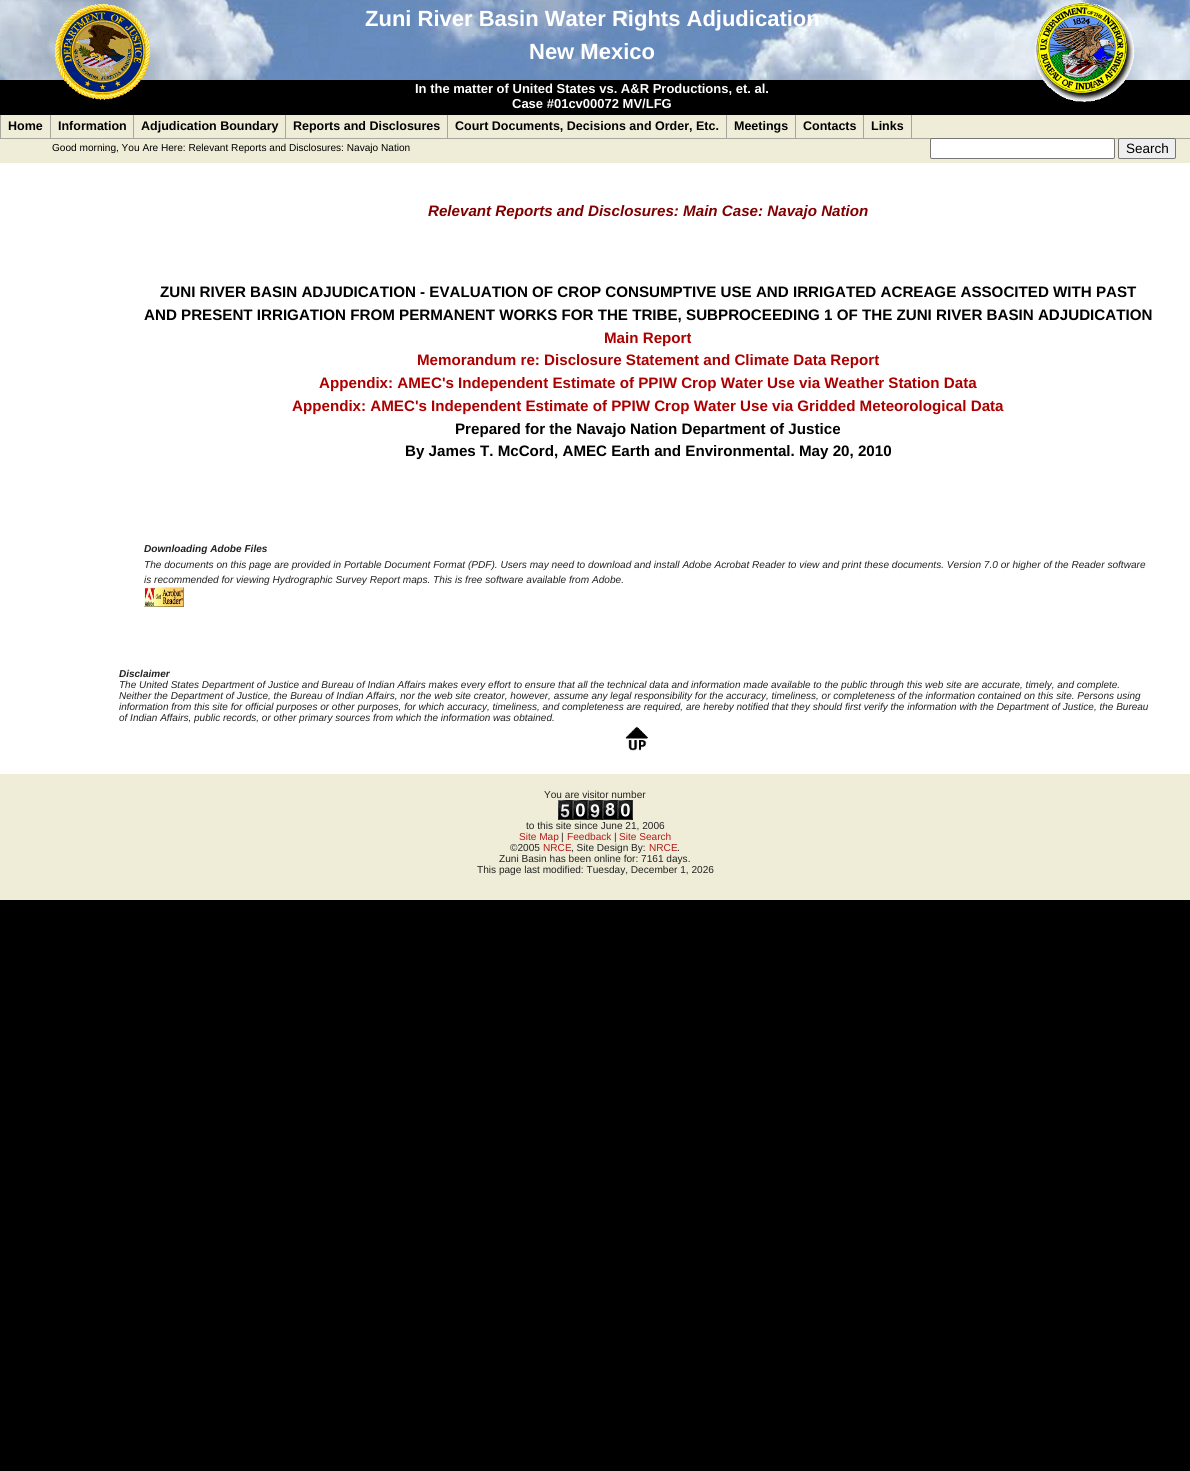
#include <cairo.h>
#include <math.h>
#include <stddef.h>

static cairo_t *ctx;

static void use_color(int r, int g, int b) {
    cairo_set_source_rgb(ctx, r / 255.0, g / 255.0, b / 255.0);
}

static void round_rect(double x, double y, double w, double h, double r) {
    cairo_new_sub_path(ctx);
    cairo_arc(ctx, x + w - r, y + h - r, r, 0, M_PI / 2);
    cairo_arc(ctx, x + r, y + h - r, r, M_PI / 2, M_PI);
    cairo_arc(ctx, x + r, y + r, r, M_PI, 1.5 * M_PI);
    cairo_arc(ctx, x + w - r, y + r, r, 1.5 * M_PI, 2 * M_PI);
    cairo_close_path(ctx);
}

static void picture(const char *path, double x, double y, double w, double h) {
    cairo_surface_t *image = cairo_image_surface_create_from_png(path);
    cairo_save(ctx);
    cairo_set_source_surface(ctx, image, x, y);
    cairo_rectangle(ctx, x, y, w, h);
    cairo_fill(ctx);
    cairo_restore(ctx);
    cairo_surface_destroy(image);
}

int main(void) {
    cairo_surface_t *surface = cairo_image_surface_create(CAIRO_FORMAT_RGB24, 1190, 1471);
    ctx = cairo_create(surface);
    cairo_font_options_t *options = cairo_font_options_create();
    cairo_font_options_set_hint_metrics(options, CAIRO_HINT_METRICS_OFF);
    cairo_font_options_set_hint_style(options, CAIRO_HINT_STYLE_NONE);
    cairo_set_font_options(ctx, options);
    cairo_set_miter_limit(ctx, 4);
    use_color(0, 0, 0);
    cairo_paint(ctx);
    picture("img1.png", 0, 0, 1190, 80);
    picture("img2.png", 55, 3, 96, 97);
    cairo_select_font_face(ctx, "Liberation Sans", CAIRO_FONT_SLANT_NORMAL, CAIRO_FONT_WEIGHT_BOLD);
    cairo_set_font_size(ctx, 22);
    use_color(255, 255, 255);
    cairo_move_to(ctx, 365, 26);
    cairo_show_text(ctx, "Zuni River Basin Water Rights Adjudication");
    cairo_move_to(ctx, 529, 59);
    cairo_show_text(ctx, "New Mexico");
    cairo_set_font_size(ctx, 13);
    cairo_move_to(ctx, 415, 93);
    cairo_show_text(ctx, "In the matter of United States vs. A&R Productions, et. al.");
    cairo_move_to(ctx, 512, 108);
    cairo_show_text(ctx, "Case #01cv00072 MV/LFG");
    picture("img3.png", 1034, 2, 101, 100);
    use_color(239, 237, 215);
    cairo_rectangle(ctx, 0, 115, 1190, 48);
    cairo_fill(ctx);
    use_color(166, 166, 157);
    cairo_rectangle(ctx, 0, 115, 1, 23);
    cairo_fill(ctx);
    cairo_set_font_size(ctx, 12.5);
    use_color(0, 0, 0);
    cairo_move_to(ctx, 8, 130);
    cairo_show_text(ctx, "Home");
    use_color(166, 166, 157);
    cairo_rectangle(ctx, 50, 115, 1, 23);
    cairo_fill(ctx);
    use_color(0, 0, 0);
    cairo_move_to(ctx, 58, 130);
    cairo_show_text(ctx, "Information");
    use_color(166, 166, 157);
    cairo_rectangle(ctx, 133, 115, 1, 23);
    cairo_fill(ctx);
    use_color(0, 0, 0);
    cairo_move_to(ctx, 141, 130);
    cairo_show_text(ctx, "Adjudication Boundary");
    use_color(166, 166, 157);
    cairo_rectangle(ctx, 285, 115, 1, 23);
    cairo_fill(ctx);
    use_color(0, 0, 0);
    cairo_move_to(ctx, 293, 130);
    cairo_show_text(ctx, "Reports and Disclosures");
    use_color(166, 166, 157);
    cairo_rectangle(ctx, 447, 115, 1, 23);
    cairo_fill(ctx);
    use_color(0, 0, 0);
    cairo_move_to(ctx, 455, 130);
    cairo_show_text(ctx, "Court Documents, Decisions and Order, Etc.");
    use_color(166, 166, 157);
    cairo_rectangle(ctx, 726, 115, 1, 23);
    cairo_fill(ctx);
    use_color(0, 0, 0);
    cairo_move_to(ctx, 734, 130);
    cairo_show_text(ctx, "Meetings");
    use_color(166, 166, 157);
    cairo_rectangle(ctx, 795, 115, 1, 23);
    cairo_fill(ctx);
    use_color(0, 0, 0);
    cairo_move_to(ctx, 803, 130);
    cairo_show_text(ctx, "Contacts");
    use_color(166, 166, 157);
    cairo_rectangle(ctx, 863, 115, 1, 23);
    cairo_fill(ctx);
    use_color(0, 0, 0);
    cairo_move_to(ctx, 871, 130);
    cairo_show_text(ctx, "Links");
    use_color(166, 166, 157);
    cairo_rectangle(ctx, 911, 115, 1, 23);
    cairo_fill(ctx);
    cairo_rectangle(ctx, 0, 138, 1190, 1);
    cairo_fill(ctx);
    cairo_select_font_face(ctx, "Liberation Sans", CAIRO_FONT_SLANT_NORMAL, CAIRO_FONT_WEIGHT_NORMAL);
    cairo_set_font_size(ctx, 10.1);
    use_color(0, 0, 0);
    cairo_move_to(ctx, 52, 151);
    cairo_show_text(ctx, "Good morning, You Are Here: Relevant Reports and Disclosures: Navajo Nation");
    use_color(255, 255, 255);
    round_rect(930.5, 138.5, 184, 20, 1.5);
    cairo_fill_preserve(ctx);
    use_color(118, 118, 118);
    cairo_set_line_width(ctx, 1);
    cairo_stroke(ctx);
    use_color(239, 239, 239);
    round_rect(1118.5, 138.5, 57, 20, 1.5);
    cairo_fill_preserve(ctx);
    use_color(118, 118, 118);
    cairo_stroke(ctx);
    cairo_set_font_size(ctx, 13.5);
    use_color(0, 0, 0);
    cairo_move_to(ctx, 1126, 153);
    cairo_show_text(ctx, "Search");
    use_color(255, 255, 255);
    cairo_rectangle(ctx, 0, 163, 1190, 611);
    cairo_fill(ctx);
    cairo_select_font_face(ctx, "Liberation Sans", CAIRO_FONT_SLANT_ITALIC, CAIRO_FONT_WEIGHT_BOLD);
    cairo_set_font_size(ctx, 15.15);
    use_color(128, 0, 0);
    cairo_move_to(ctx, 428, 216);
    cairo_show_text(ctx, "Relevant Reports and Disclosures: Main Case: Navajo Nation");
    cairo_select_font_face(ctx, "Liberation Sans", CAIRO_FONT_SLANT_NORMAL, CAIRO_FONT_WEIGHT_BOLD);
    use_color(0, 0, 0);
    cairo_move_to(ctx, 160, 297);
    cairo_show_text(ctx, "ZUNI RIVER BASIN ADJUDICATION - EVALUATION OF CROP CONSUMPTIVE USE AND IRRIGATED ACREAGE ASSOCITED WITH PAST");
    cairo_move_to(ctx, 144, 320);
    cairo_show_text(ctx, "AND PRESENT IRRIGATION FROM PERMANENT WORKS FOR THE TRIBE, SUBPROCEEDING 1 OF THE ZUNI RIVER BASIN ADJUDICATION");
    use_color(172, 0, 0);
    cairo_move_to(ctx, 604, 343);
    cairo_show_text(ctx, "Main Report");
    cairo_move_to(ctx, 417, 365);
    cairo_show_text(ctx, "Memorandum re: Disclosure Statement and Climate Data Report");
    cairo_move_to(ctx, 319, 388);
    cairo_show_text(ctx, "Appendix: AMEC's Independent Estimate of PPIW Crop Water Use via Weather Station Data");
    cairo_move_to(ctx, 292, 411);
    cairo_show_text(ctx, "Appendix: AMEC's Independent Estimate of PPIW Crop Water Use via Gridded Meteorological Data");
    use_color(0, 0, 0);
    cairo_move_to(ctx, 455, 434);
    cairo_show_text(ctx, "Prepared for the Navajo Nation Department of Justice");
    cairo_move_to(ctx, 405, 456);
    cairo_show_text(ctx, "By James T. McCord, AMEC Earth and Environmental. May 20, 2010");
    cairo_select_font_face(ctx, "Liberation Sans", CAIRO_FONT_SLANT_ITALIC, CAIRO_FONT_WEIGHT_BOLD);
    cairo_set_font_size(ctx, 10.1);
    use_color(34, 34, 34);
    cairo_move_to(ctx, 144, 552);
    cairo_show_text(ctx, "Downloading Adobe Files");
    cairo_select_font_face(ctx, "Liberation Sans", CAIRO_FONT_SLANT_ITALIC, CAIRO_FONT_WEIGHT_NORMAL);
    cairo_move_to(ctx, 144, 568);
    cairo_show_text(ctx, "The documents on this page are provided in Portable Document Format (PDF). Users may need to download and install Adobe Acrobat Reader to view and print these documents. Version 7.0 or higher of the Reader software");
    cairo_move_to(ctx, 144, 583);
    cairo_show_text(ctx, "is recommended for viewing Hydrographic Survey Report maps. This is free software available from Adobe.");
    picture("img4.png", 144, 587, 40, 20);
    cairo_select_font_face(ctx, "Liberation Sans", CAIRO_FONT_SLANT_ITALIC, CAIRO_FONT_WEIGHT_BOLD);
    cairo_set_font_size(ctx, 10);
    cairo_move_to(ctx, 119, 677);
    cairo_show_text(ctx, "Disclaimer");
    cairo_select_font_face(ctx, "Liberation Sans", CAIRO_FONT_SLANT_ITALIC, CAIRO_FONT_WEIGHT_NORMAL);
    cairo_move_to(ctx, 119, 688);
    cairo_show_text(ctx, "The United States Department of Justice and Bureau of Indian Affairs makes every effort to ensure that all the technical data and information made available to the public through this web site are accurate, timely, and complete.");
    cairo_move_to(ctx, 119, 699);
    cairo_show_text(ctx, "Neither the Department of Justice, the Bureau of Indian Affairs, nor the web site creator, however, assume any legal responsibility for the accuracy, timeliness, or completeness of the information contained on this site. Persons using");
    cairo_move_to(ctx, 119, 710);
    cairo_show_text(ctx, "information from this site for official purposes or other purposes, for which accuracy, timeliness, and completeness are required, are hereby notified that they should first verify the information with the Department of Justice, the Bureau");
    cairo_move_to(ctx, 119, 721);
    cairo_show_text(ctx, "of Indian Affairs, public records, or other primary sources from which the information was obtained.");
    picture("img5.png", 625, 726, 23, 25);
    use_color(239, 237, 215);
    cairo_rectangle(ctx, 0, 774, 1190, 126);
    cairo_fill(ctx);
    cairo_select_font_face(ctx, "Liberation Sans", CAIRO_FONT_SLANT_NORMAL, CAIRO_FONT_WEIGHT_NORMAL);
    cairo_set_font_size(ctx, 10.1);
    use_color(34, 34, 34);
    cairo_move_to(ctx, 544, 798);
    cairo_show_text(ctx, "You are visitor number");
    picture("img6.png", 558, 800, 75, 20);
    cairo_move_to(ctx, 526, 829);
    cairo_show_text(ctx, "to this site since June 21, 2006");
    use_color(179, 27, 27);
    cairo_move_to(ctx, 519, 840);
    cairo_show_text(ctx, "Site Map");
    use_color(34, 34, 34);
    cairo_move_to(ctx, 561, 840);
    cairo_show_text(ctx, "|");
    use_color(179, 27, 27);
    cairo_move_to(ctx, 567, 840);
    cairo_show_text(ctx, "Feedback");
    use_color(34, 34, 34);
    cairo_move_to(ctx, 614, 840);
    cairo_show_text(ctx, "|");
    use_color(179, 27, 27);
    cairo_move_to(ctx, 619, 840);
    cairo_show_text(ctx, "Site Search");
    use_color(34, 34, 34);
    cairo_move_to(ctx, 510, 851);
    cairo_show_text(ctx, "©2005");
    use_color(179, 27, 27);
    cairo_move_to(ctx, 543, 851);
    cairo_show_text(ctx, "NRCE");
    use_color(34, 34, 34);
    cairo_move_to(ctx, 571, 851);
    cairo_show_text(ctx, ", Site Design By:");
    use_color(179, 27, 27);
    cairo_move_to(ctx, 649, 851);
    cairo_show_text(ctx, "NRCE");
    use_color(34, 34, 34);
    cairo_move_to(ctx, 677, 851);
    cairo_show_text(ctx, ".");
    cairo_move_to(ctx, 499, 862);
    cairo_show_text(ctx, "Zuni Basin has been online for: 7161 days.");
    cairo_move_to(ctx, 477, 873);
    cairo_show_text(ctx, "This page last modified: Tuesday, December 1, 2026");
    cairo_surface_write_to_png(surface, "result.png");
    cairo_font_options_destroy(options);
    cairo_destroy(ctx);
    cairo_surface_destroy(surface);
    return 0;
}
